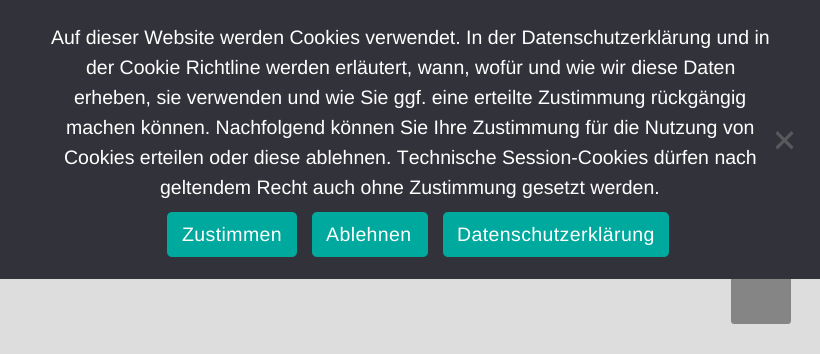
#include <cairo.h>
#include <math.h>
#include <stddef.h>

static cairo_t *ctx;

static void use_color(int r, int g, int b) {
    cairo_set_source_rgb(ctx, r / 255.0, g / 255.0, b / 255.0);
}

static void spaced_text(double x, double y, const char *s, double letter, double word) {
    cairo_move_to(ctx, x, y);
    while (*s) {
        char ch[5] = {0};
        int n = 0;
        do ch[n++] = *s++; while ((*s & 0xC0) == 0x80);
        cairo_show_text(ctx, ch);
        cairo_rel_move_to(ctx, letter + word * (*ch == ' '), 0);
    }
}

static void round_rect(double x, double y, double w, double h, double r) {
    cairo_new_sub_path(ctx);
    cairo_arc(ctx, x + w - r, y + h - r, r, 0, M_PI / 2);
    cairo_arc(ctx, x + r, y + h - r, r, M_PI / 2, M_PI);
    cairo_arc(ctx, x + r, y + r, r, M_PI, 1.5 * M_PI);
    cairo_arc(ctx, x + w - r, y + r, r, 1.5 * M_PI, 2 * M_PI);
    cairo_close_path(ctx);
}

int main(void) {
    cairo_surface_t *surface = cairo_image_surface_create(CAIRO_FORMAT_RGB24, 820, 354);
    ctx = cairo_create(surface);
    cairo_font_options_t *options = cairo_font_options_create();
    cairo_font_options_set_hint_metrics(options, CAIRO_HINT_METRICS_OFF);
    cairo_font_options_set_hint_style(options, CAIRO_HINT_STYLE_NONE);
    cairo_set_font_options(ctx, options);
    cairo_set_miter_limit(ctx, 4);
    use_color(221, 221, 221);
    cairo_paint(ctx);
    use_color(133, 133, 133);
    round_rect(731, 264, 60, 60, 3);
    cairo_fill(ctx);
    use_color(50, 50, 58);
    cairo_rectangle(ctx, 0, 0, 820, 279);
    cairo_fill(ctx);
    cairo_select_font_face(ctx, "Liberation Sans", CAIRO_FONT_SLANT_NORMAL, CAIRO_FONT_WEIGHT_NORMAL);
    cairo_set_font_size(ctx, 19.5);
    use_color(255, 255, 255);
    cairo_move_to(ctx, 51, 44);
    cairo_show_text(ctx, "Auf dieser Website werden Cookies verwendet. In der Datenschutzerklärung und in");
    cairo_move_to(ctx, 86, 74);
    cairo_show_text(ctx, "der Cookie Richtline werden erläutert, wann, wofür und wie wir diese Daten");
    cairo_move_to(ctx, 74, 104);
    cairo_show_text(ctx, "erheben, sie verwenden und wie Sie ggf. eine erteilte Zustimmung rückgängig");
    cairo_move_to(ctx, 66, 134);
    cairo_show_text(ctx, "machen können. Nachfolgend können Sie Ihre Zustimmung für die Nutzung von");
    cairo_move_to(ctx, 64, 164);
    cairo_show_text(ctx, "Cookies erteilen oder diese ablehnen. Technische Session-Cookies dürfen nach");
    cairo_move_to(ctx, 160, 194);
    cairo_show_text(ctx, "geltendem Recht auch ohne Zustimmung gesetzt werden.");
    use_color(89, 89, 93);
    cairo_new_path(ctx);
    cairo_move_to(ctx, 791.5, 131);
    cairo_line_to(ctx, 793.5, 133.5);
    cairo_line_to(ctx, 777.5, 149.5);
    cairo_line_to(ctx, 775.5, 147);
    cairo_close_path(ctx);
    cairo_fill(ctx);
    cairo_new_path(ctx);
    cairo_move_to(ctx, 775.5, 133.5);
    cairo_line_to(ctx, 777.5, 131);
    cairo_line_to(ctx, 793.5, 147);
    cairo_line_to(ctx, 791.5, 149.5);
    cairo_close_path(ctx);
    cairo_fill(ctx);
    use_color(0, 169, 157);
    round_rect(167, 212, 130, 45, 5);
    cairo_fill(ctx);
    use_color(255, 255, 255);
    spaced_text(182, 241, "Zustimmen", 0.4, 0);
    use_color(0, 169, 157);
    round_rect(312, 212, 116, 45, 5);
    cairo_fill(ctx);
    use_color(255, 255, 255);
    spaced_text(326, 241, "Ablehnen", 0.4, 0);
    use_color(0, 169, 157);
    round_rect(443, 212, 226, 45, 5);
    cairo_fill(ctx);
    use_color(255, 255, 255);
    spaced_text(457, 241, "Datenschutzerklärung", 0.4, 0);
    cairo_surface_write_to_png(surface, "result.png");
    cairo_font_options_destroy(options);
    cairo_destroy(ctx);
    cairo_surface_destroy(surface);
    return 0;
}
